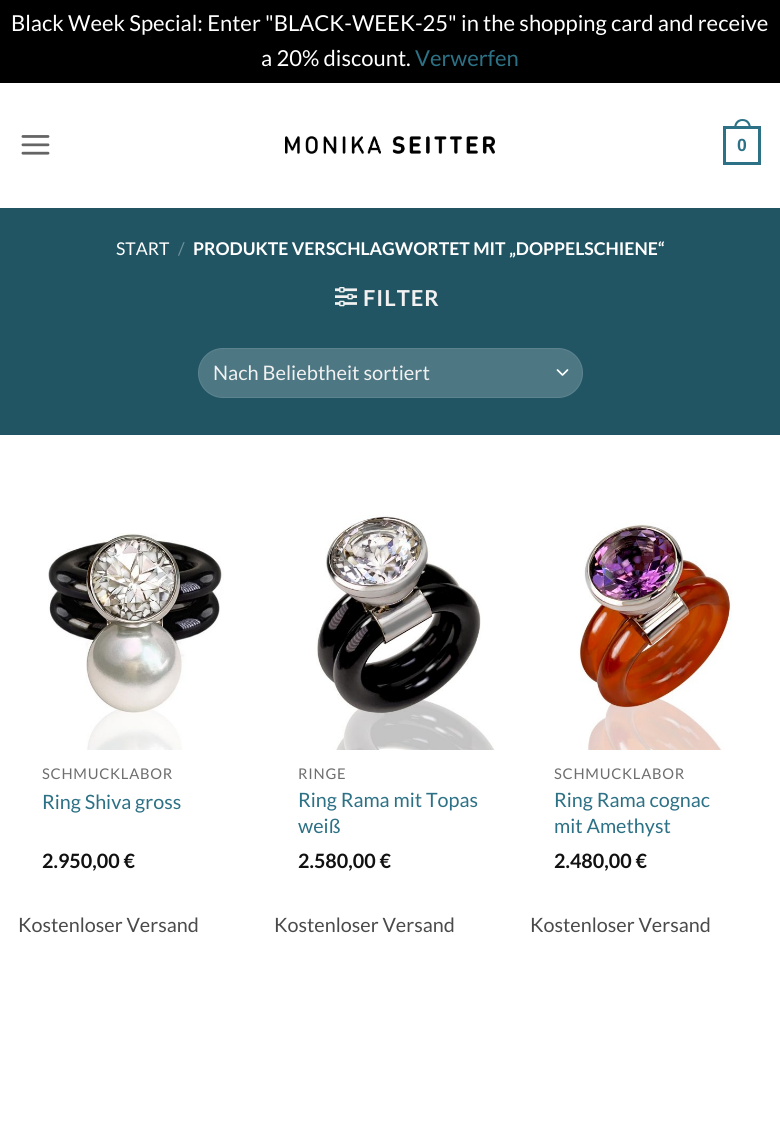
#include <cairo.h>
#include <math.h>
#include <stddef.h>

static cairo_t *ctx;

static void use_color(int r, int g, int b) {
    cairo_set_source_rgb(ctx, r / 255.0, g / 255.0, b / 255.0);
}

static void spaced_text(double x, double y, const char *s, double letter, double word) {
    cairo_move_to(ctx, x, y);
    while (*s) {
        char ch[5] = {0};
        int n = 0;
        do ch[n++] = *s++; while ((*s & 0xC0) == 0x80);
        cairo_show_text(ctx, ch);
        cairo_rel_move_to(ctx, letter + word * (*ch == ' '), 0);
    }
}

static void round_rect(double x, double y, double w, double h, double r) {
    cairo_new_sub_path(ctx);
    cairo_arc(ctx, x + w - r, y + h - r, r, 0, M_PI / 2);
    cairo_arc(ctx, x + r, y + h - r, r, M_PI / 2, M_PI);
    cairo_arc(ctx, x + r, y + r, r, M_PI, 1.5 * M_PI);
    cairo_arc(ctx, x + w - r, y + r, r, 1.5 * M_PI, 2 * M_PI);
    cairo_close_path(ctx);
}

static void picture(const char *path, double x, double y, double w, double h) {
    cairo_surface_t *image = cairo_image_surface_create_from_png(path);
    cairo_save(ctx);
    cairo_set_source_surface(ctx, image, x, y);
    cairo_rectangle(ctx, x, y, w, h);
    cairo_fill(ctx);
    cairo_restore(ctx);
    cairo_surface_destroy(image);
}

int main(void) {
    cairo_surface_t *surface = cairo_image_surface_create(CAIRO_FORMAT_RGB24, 780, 1139);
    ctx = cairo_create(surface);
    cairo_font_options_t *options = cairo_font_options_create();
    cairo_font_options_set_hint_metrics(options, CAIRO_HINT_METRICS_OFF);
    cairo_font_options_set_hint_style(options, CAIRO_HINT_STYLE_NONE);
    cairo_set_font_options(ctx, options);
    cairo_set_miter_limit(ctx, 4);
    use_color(0, 0, 0);
    cairo_paint(ctx);
    cairo_select_font_face(ctx, "Lato", CAIRO_FONT_SLANT_NORMAL, CAIRO_FONT_WEIGHT_NORMAL);
    cairo_set_font_size(ctx, 22);
    use_color(255, 255, 255);
    cairo_move_to(ctx, 11, 31);
    cairo_show_text(ctx, "Black Week Special: Enter \"BLACK-WEEK-25\" in the shopping card and receive");
    cairo_move_to(ctx, 261, 66);
    cairo_show_text(ctx, "a 20% discount.");
    use_color(44, 113, 133);
    cairo_move_to(ctx, 415, 66);
    cairo_show_text(ctx, "Verwerfen");
    use_color(255, 255, 255);
    cairo_rectangle(ctx, 0, 83, 780, 1056);
    cairo_fill(ctx);
    picture("img1.png", 21, 135, 29, 20);
    picture("img2.png", 285, 136, 210, 18);
    cairo_rectangle(ctx, 724.5, 127.5, 35, 36);
    use_color(44, 113, 133);
    cairo_set_line_width(ctx, 3);
    cairo_stroke(ctx);
    cairo_set_fill_rule(ctx, CAIRO_FILL_RULE_EVEN_ODD);
    cairo_new_path(ctx);
    cairo_move_to(ctx, 742.5, 119);
    cairo_curve_to(ctx, 748.5, 119, 751, 123.5, 751, 129);
    cairo_line_to(ctx, 734, 129);
    cairo_curve_to(ctx, 734, 123.5, 736.5, 119, 742.5, 119);
    cairo_close_path(ctx);
    cairo_move_to(ctx, 742.5, 121);
    cairo_curve_to(ctx, 747, 121, 749, 125, 749, 129);
    cairo_line_to(ctx, 736, 129);
    cairo_curve_to(ctx, 736, 125, 738, 121, 742.5, 121);
    cairo_close_path(ctx);
    cairo_fill(ctx);
    cairo_select_font_face(ctx, "Liberation Sans", CAIRO_FONT_SLANT_NORMAL, CAIRO_FONT_WEIGHT_BOLD);
    cairo_set_font_size(ctx, 17.6);
    cairo_move_to(ctx, 737, 151);
    cairo_show_text(ctx, "0");
    use_color(33, 85, 100);
    cairo_rectangle(ctx, 0, 208, 780, 227);
    cairo_fill(ctx);
    use_color(37, 84, 97);
    cairo_rectangle(ctx, 19, 208, 742, 1);
    cairo_fill(ctx);
    cairo_select_font_face(ctx, "Lato", CAIRO_FONT_SLANT_NORMAL, CAIRO_FONT_WEIGHT_NORMAL);
    use_color(255, 255, 255);
    cairo_move_to(ctx, 116, 255);
    cairo_show_text(ctx, "START");
    use_color(111, 145, 154);
    cairo_move_to(ctx, 178, 255);
    cairo_show_text(ctx, "/");
    cairo_select_font_face(ctx, "Lato", CAIRO_FONT_SLANT_NORMAL, CAIRO_FONT_WEIGHT_BOLD);
    use_color(255, 255, 255);
    cairo_move_to(ctx, 193, 255);
    cairo_show_text(ctx, "PRODUKTE VERSCHLAGWORTET MIT „DOPPELSCHIENE“");
    picture("img3.png", 335, 287, 22, 20);
    cairo_set_font_size(ctx, 22);
    use_color(241, 241, 241);
    spaced_text(363, 306, "FILTER", 1, 0);
    use_color(77, 119, 131);
    round_rect(198, 348, 385, 50, 25);
    cairo_fill(ctx);
    cairo_new_path(ctx);
    cairo_move_to(ctx, 557.5, 370);
    cairo_line_to(ctx, 562.5, 375);
    cairo_line_to(ctx, 567.5, 370);
    use_color(255, 255, 255);
    cairo_set_line_width(ctx, 1.7);
    cairo_set_line_cap(ctx, CAIRO_LINE_CAP_ROUND);
    cairo_set_line_join(ctx, CAIRO_LINE_JOIN_ROUND);
    cairo_stroke(ctx);
    round_rect(198.5, 348.5, 384, 49, 24.5);
    cairo_set_source_rgba(ctx, 1, 1, 1, 0.09);
    cairo_set_line_width(ctx, 1);
    cairo_set_line_cap(ctx, CAIRO_LINE_CAP_BUTT);
    cairo_set_line_join(ctx, CAIRO_LINE_JOIN_MITER);
    cairo_stroke(ctx);
    cairo_select_font_face(ctx, "Lato", CAIRO_FONT_SLANT_NORMAL, CAIRO_FONT_WEIGHT_NORMAL);
    cairo_set_font_size(ctx, 20);
    use_color(241, 241, 241);
    cairo_move_to(ctx, 213, 380);
    cairo_show_text(ctx, "Nach Beliebtheit sortiert");
    picture("img4.png", 48, 533, 176, 217);
    cairo_set_font_size(ctx, 14.75);
    use_color(110, 110, 110);
    spaced_text(42, 779, "SCHMUCKLABOR", 0.75, 0);
    cairo_set_font_size(ctx, 19.75);
    use_color(44, 113, 133);
    cairo_move_to(ctx, 42, 809);
    cairo_show_text(ctx, "Ring Shiva gross");
    cairo_select_font_face(ctx, "Lato", CAIRO_FONT_SLANT_NORMAL, CAIRO_FONT_WEIGHT_BOLD);
    use_color(17, 17, 17);
    cairo_move_to(ctx, 42, 868);
    cairo_show_text(ctx, "2.950,00 €");
    cairo_select_font_face(ctx, "Lato", CAIRO_FONT_SLANT_NORMAL, CAIRO_FONT_WEIGHT_NORMAL);
    use_color(74, 74, 74);
    cairo_move_to(ctx, 18, 932);
    cairo_show_text(ctx, "Kostenloser Versand");
    picture("img5.png", 316, 515, 179, 235);
    cairo_set_font_size(ctx, 14.75);
    use_color(110, 110, 110);
    spaced_text(298, 779, "RINGE", 0.75, 0);
    cairo_set_font_size(ctx, 19.75);
    use_color(44, 113, 133);
    cairo_move_to(ctx, 298, 807);
    cairo_show_text(ctx, "Ring Rama mit Topas");
    cairo_move_to(ctx, 298, 833);
    cairo_show_text(ctx, "weiß");
    cairo_select_font_face(ctx, "Lato", CAIRO_FONT_SLANT_NORMAL, CAIRO_FONT_WEIGHT_BOLD);
    use_color(17, 17, 17);
    cairo_move_to(ctx, 298, 868);
    cairo_show_text(ctx, "2.580,00 €");
    cairo_select_font_face(ctx, "Lato", CAIRO_FONT_SLANT_NORMAL, CAIRO_FONT_WEIGHT_NORMAL);
    use_color(74, 74, 74);
    cairo_move_to(ctx, 274, 932);
    cairo_show_text(ctx, "Kostenloser Versand");
    picture("img6.png", 578, 523, 154, 227);
    cairo_set_font_size(ctx, 14.75);
    use_color(110, 110, 110);
    spaced_text(554, 779, "SCHMUCKLABOR", 0.75, 0);
    cairo_set_font_size(ctx, 19.75);
    use_color(44, 113, 133);
    cairo_move_to(ctx, 554, 807);
    cairo_show_text(ctx, "Ring Rama cognac");
    cairo_move_to(ctx, 554, 833);
    cairo_show_text(ctx, "mit Amethyst");
    cairo_select_font_face(ctx, "Lato", CAIRO_FONT_SLANT_NORMAL, CAIRO_FONT_WEIGHT_BOLD);
    use_color(17, 17, 17);
    cairo_move_to(ctx, 554, 868);
    cairo_show_text(ctx, "2.480,00 €");
    cairo_select_font_face(ctx, "Lato", CAIRO_FONT_SLANT_NORMAL, CAIRO_FONT_WEIGHT_NORMAL);
    use_color(74, 74, 74);
    cairo_move_to(ctx, 530, 932);
    cairo_show_text(ctx, "Kostenloser Versand");
    cairo_surface_write_to_png(surface, "result.png");
    cairo_font_options_destroy(options);
    cairo_destroy(ctx);
    cairo_surface_destroy(surface);
    return 0;
}
